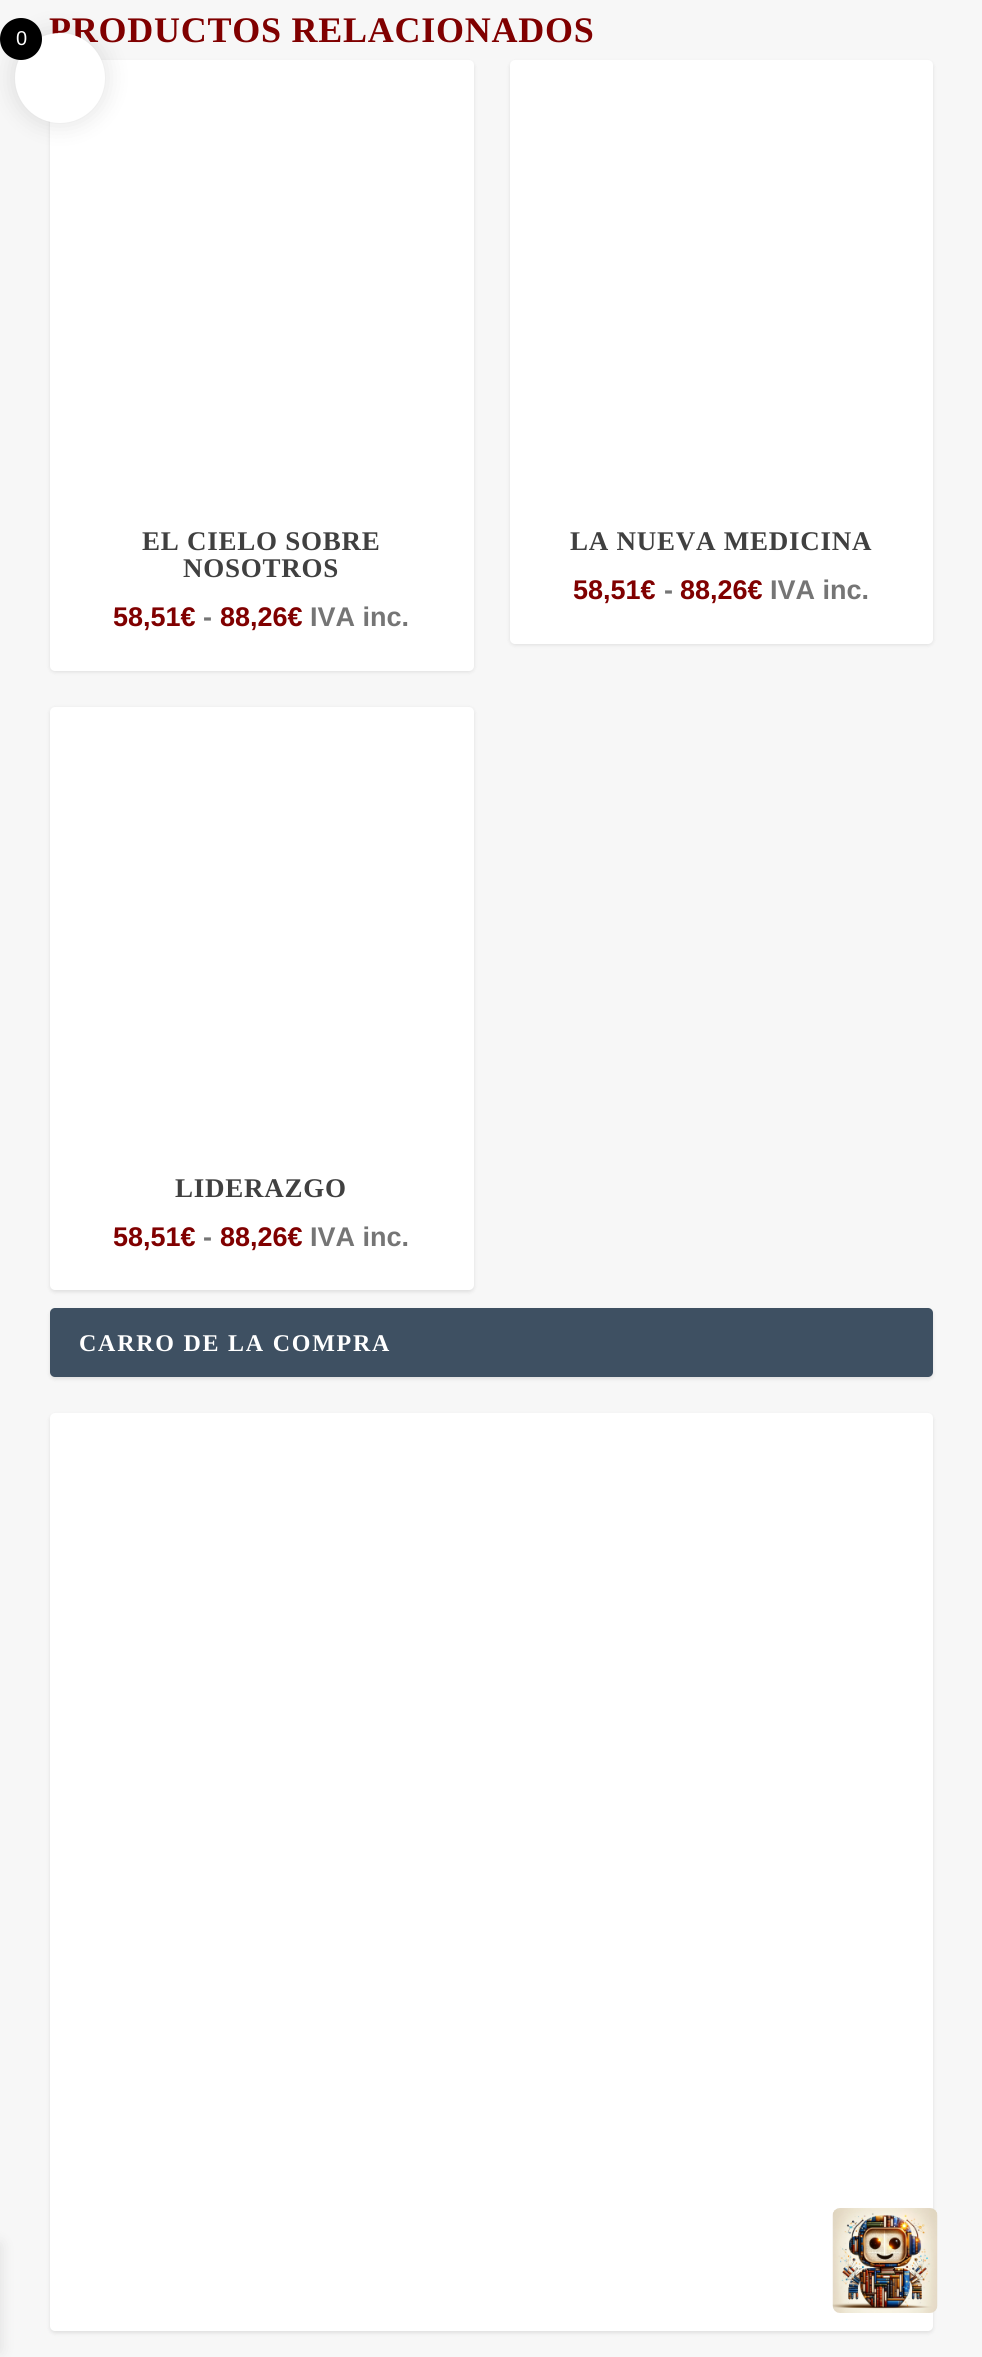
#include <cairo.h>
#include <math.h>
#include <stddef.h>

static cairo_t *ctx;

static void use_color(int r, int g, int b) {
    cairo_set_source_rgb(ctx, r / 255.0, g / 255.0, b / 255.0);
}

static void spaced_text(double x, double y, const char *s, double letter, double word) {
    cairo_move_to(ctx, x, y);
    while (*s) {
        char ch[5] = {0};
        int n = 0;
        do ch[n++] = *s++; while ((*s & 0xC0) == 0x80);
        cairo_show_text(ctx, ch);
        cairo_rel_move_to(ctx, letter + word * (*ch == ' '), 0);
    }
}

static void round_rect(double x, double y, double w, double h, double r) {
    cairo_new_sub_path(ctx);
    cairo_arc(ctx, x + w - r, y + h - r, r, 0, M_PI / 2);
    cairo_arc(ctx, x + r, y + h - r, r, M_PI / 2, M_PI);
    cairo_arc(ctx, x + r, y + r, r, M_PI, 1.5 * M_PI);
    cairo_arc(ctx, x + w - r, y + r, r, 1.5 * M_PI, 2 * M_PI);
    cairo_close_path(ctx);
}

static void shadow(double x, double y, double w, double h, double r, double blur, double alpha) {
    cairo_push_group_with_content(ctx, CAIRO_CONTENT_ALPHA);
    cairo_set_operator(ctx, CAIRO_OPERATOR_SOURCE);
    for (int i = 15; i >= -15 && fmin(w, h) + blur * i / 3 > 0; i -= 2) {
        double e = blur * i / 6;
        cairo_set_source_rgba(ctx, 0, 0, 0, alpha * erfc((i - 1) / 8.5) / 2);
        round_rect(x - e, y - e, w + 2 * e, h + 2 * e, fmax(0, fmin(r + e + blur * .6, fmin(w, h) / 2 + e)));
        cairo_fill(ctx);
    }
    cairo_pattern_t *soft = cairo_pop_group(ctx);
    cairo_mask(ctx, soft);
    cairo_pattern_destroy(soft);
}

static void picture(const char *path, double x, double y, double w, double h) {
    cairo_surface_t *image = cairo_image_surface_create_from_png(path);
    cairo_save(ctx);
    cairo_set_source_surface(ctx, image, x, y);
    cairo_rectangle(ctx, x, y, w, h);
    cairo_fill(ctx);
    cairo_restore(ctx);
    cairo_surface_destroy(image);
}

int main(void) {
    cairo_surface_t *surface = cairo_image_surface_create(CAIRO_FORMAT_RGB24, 982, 2357);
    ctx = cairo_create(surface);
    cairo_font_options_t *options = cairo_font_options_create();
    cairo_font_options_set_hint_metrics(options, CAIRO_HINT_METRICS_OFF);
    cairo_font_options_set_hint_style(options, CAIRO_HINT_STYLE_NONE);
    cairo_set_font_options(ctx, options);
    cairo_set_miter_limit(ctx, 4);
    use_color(247, 247, 247);
    cairo_paint(ctx);
    use_color(0, 0, 0);
    shadow(50, 62, 424, 610, 5, 2, 0.1);
    use_color(255, 255, 255);
    round_rect(50, 60, 424, 611, 5);
    cairo_fill(ctx);
    use_color(0, 0, 0);
    shadow(12, 30, 96, 96, 48, 11, 0.1);
    cairo_select_font_face(ctx, "Liberation Serif", CAIRO_FONT_SLANT_NORMAL, CAIRO_FONT_WEIGHT_BOLD);
    cairo_set_font_size(ctx, 36);
    use_color(128, 0, 0);
    spaced_text(49, 42, "PRODUCTOS RELACIONADOS", 0.75, 0);
    use_color(255, 255, 255);
    cairo_new_path(ctx);
    cairo_arc(ctx, 60, 78, 45, 0, 2 * M_PI);
    cairo_fill(ctx);
    use_color(0, 0, 0);
    cairo_arc(ctx, 21, 39, 21, 0, 2 * M_PI);
    cairo_fill(ctx);
    cairo_select_font_face(ctx, "Liberation Sans", CAIRO_FONT_SLANT_NORMAL, CAIRO_FONT_WEIGHT_NORMAL);
    cairo_set_font_size(ctx, 20);
    use_color(255, 255, 255);
    cairo_move_to(ctx, 16, 45);
    cairo_show_text(ctx, "0");
    use_color(0, 0, 0);
    shadow(-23, 2244, 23, 107, 0, 7.5, 0.1);
    cairo_select_font_face(ctx, "Liberation Serif", CAIRO_FONT_SLANT_NORMAL, CAIRO_FONT_WEIGHT_BOLD);
    cairo_set_font_size(ctx, 27);
    use_color(64, 64, 64);
    spaced_text(142, 550, "EL CIELO SOBRE", 0.75, 0);
    spaced_text(183, 577, "NOSOTROS", 0.75, 0);
    cairo_select_font_face(ctx, "Liberation Sans", CAIRO_FONT_SLANT_NORMAL, CAIRO_FONT_WEIGHT_BOLD);
    use_color(128, 0, 0);
    cairo_move_to(ctx, 113, 626);
    cairo_show_text(ctx, "58,51€");
    use_color(117, 117, 117);
    cairo_move_to(ctx, 203, 626);
    cairo_show_text(ctx, "-");
    use_color(128, 0, 0);
    cairo_move_to(ctx, 220, 626);
    cairo_show_text(ctx, "88,26€");
    use_color(117, 117, 117);
    cairo_move_to(ctx, 310, 626);
    cairo_show_text(ctx, "IVA inc.");
    use_color(0, 0, 0);
    shadow(510, 62, 423, 583, 5, 2, 0.1);
    use_color(255, 255, 255);
    round_rect(510, 60, 423, 584, 5);
    cairo_fill(ctx);
    cairo_select_font_face(ctx, "Liberation Serif", CAIRO_FONT_SLANT_NORMAL, CAIRO_FONT_WEIGHT_BOLD);
    use_color(64, 64, 64);
    spaced_text(570, 550, "LA NUEVA MEDICINA", 0.75, 0);
    cairo_select_font_face(ctx, "Liberation Sans", CAIRO_FONT_SLANT_NORMAL, CAIRO_FONT_WEIGHT_BOLD);
    use_color(128, 0, 0);
    cairo_move_to(ctx, 573, 599);
    cairo_show_text(ctx, "58,51€");
    use_color(117, 117, 117);
    cairo_move_to(ctx, 664, 599);
    cairo_show_text(ctx, "-");
    use_color(128, 0, 0);
    cairo_move_to(ctx, 680, 599);
    cairo_show_text(ctx, "88,26€");
    use_color(117, 117, 117);
    cairo_move_to(ctx, 770, 599);
    cairo_show_text(ctx, "IVA inc.");
    use_color(0, 0, 0);
    shadow(50, 708, 424, 584, 5, 2, 0.1);
    use_color(255, 255, 255);
    round_rect(50, 707, 424, 583, 5);
    cairo_fill(ctx);
    cairo_select_font_face(ctx, "Liberation Serif", CAIRO_FONT_SLANT_NORMAL, CAIRO_FONT_WEIGHT_BOLD);
    use_color(64, 64, 64);
    spaced_text(175, 1197, "LIDERAZGO", 0.75, 0);
    cairo_select_font_face(ctx, "Liberation Sans", CAIRO_FONT_SLANT_NORMAL, CAIRO_FONT_WEIGHT_BOLD);
    use_color(128, 0, 0);
    cairo_move_to(ctx, 113, 1246);
    cairo_show_text(ctx, "58,51€");
    use_color(117, 117, 117);
    cairo_move_to(ctx, 203, 1246);
    cairo_show_text(ctx, "-");
    use_color(128, 0, 0);
    cairo_move_to(ctx, 220, 1246);
    cairo_show_text(ctx, "88,26€");
    use_color(117, 117, 117);
    cairo_move_to(ctx, 310, 1246);
    cairo_show_text(ctx, "IVA inc.");
    use_color(0, 0, 0);
    shadow(50, 1310, 883, 69, 5, 2, 0.1);
    use_color(62, 80, 98);
    round_rect(50, 1308, 883, 69, 5);
    cairo_fill(ctx);
    cairo_select_font_face(ctx, "Liberation Serif", CAIRO_FONT_SLANT_NORMAL, CAIRO_FONT_WEIGHT_BOLD);
    cairo_set_font_size(ctx, 24);
    use_color(255, 255, 255);
    spaced_text(79, 1351, "CARRO DE LA COMPRA", 1.75, 0);
    use_color(0, 0, 0);
    shadow(50, 1415, 883, 918, 5, 2, 0.1);
    use_color(255, 255, 255);
    round_rect(50, 1413, 883, 918, 5);
    cairo_fill(ctx);
    picture("img1.png", 832, 2208, 106, 105);
    cairo_surface_write_to_png(surface, "result.png");
    cairo_font_options_destroy(options);
    cairo_destroy(ctx);
    cairo_surface_destroy(surface);
    return 0;
}
